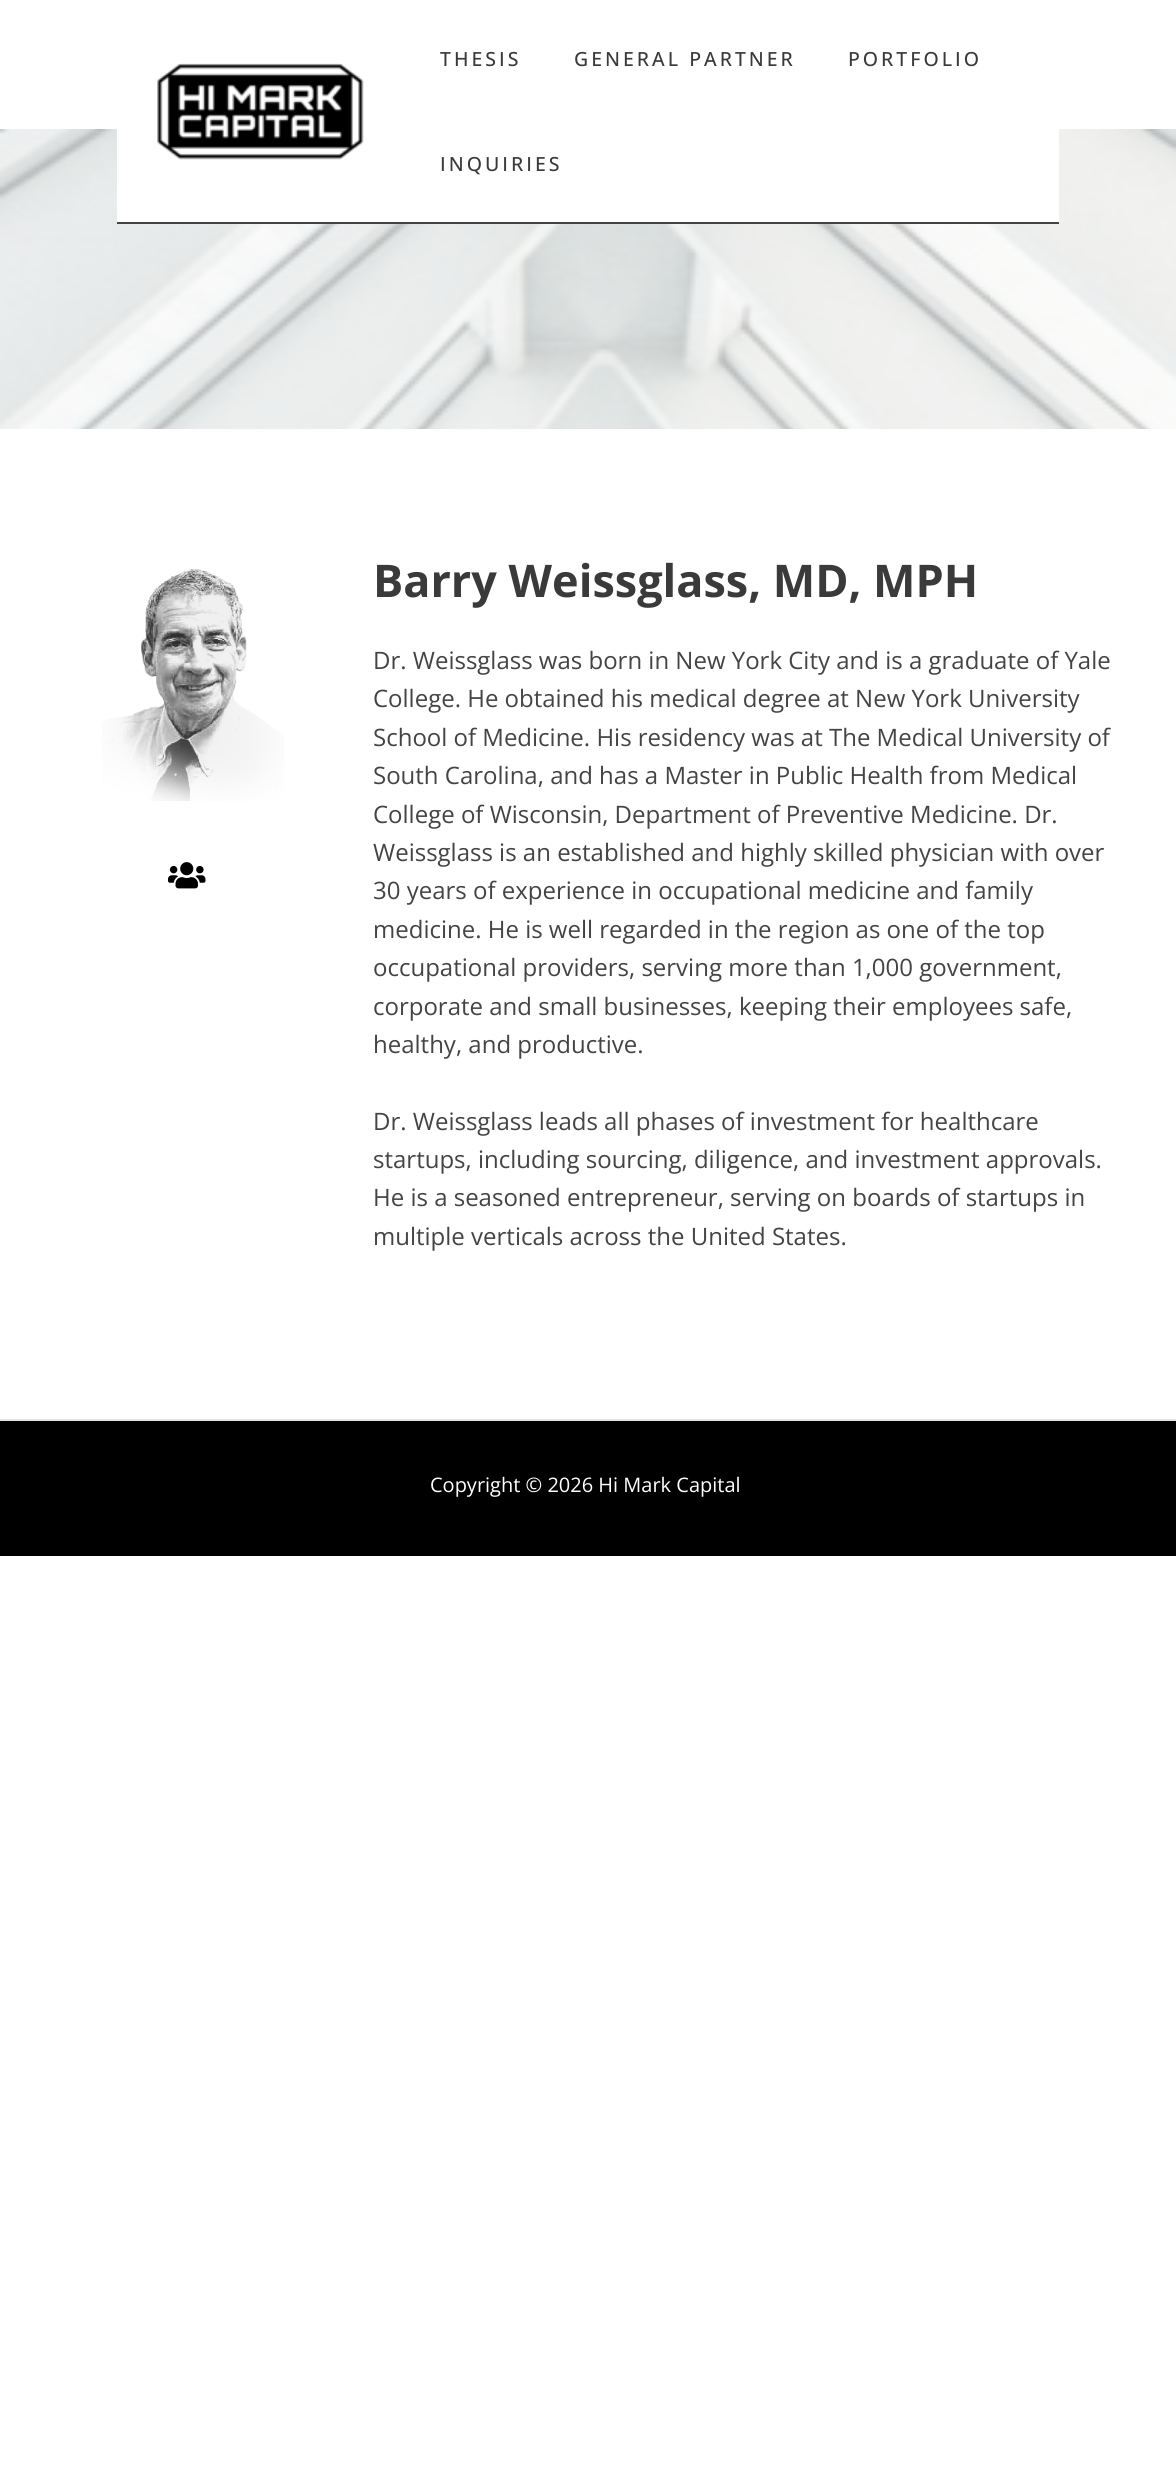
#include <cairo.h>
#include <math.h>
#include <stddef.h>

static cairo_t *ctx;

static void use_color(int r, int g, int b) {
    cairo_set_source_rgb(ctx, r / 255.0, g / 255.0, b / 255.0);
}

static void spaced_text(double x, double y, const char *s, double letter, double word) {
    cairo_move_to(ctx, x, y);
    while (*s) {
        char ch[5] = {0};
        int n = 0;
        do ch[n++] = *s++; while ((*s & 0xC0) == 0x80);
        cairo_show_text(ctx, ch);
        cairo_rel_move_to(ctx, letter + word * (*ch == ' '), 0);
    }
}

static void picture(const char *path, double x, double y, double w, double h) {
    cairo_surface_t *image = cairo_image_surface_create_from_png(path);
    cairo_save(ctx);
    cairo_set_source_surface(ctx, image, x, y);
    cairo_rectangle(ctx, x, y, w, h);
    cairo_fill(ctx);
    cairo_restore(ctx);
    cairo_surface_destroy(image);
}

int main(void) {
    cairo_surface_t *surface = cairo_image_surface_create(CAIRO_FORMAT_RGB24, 1176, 2483);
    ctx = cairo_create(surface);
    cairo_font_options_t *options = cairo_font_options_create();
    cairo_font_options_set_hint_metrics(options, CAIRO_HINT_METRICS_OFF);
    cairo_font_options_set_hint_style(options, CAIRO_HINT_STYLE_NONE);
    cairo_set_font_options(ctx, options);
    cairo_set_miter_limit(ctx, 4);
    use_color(255, 255, 255);
    cairo_paint(ctx);
    picture("img2.png", 0, 129, 1176, 300);
    use_color(255, 255, 255);
    cairo_rectangle(ctx, 117, 129, 942, 93);
    cairo_fill(ctx);
    use_color(68, 68, 68);
    cairo_rectangle(ctx, 117, 222, 942, 2);
    cairo_fill(ctx);
    picture("img1.png", 157, 63, 207, 97);
    cairo_select_font_face(ctx, "Open Sans Medium", CAIRO_FONT_SLANT_NORMAL, CAIRO_FONT_WEIGHT_NORMAL);
    cairo_set_font_size(ctx, 19.5);
    use_color(58, 58, 58);
    spaced_text(440, 66, "THESIS", 3, 0);
    spaced_text(574, 66, "GENERAL PARTNER", 3, 0);
    spaced_text(848, 66, "PORTFOLIO", 3, 0);
    spaced_text(440, 171, "INQUIRIES", 3, 0);
    picture("img3.png", 102, 569, 182, 232);
    picture("img4.png", 168, 862, 38, 27);
    cairo_select_font_face(ctx, "Open Sans", CAIRO_FONT_SLANT_NORMAL, CAIRO_FONT_WEIGHT_BOLD);
    cairo_set_font_size(ctx, 45);
    cairo_move_to(ctx, 373, 597);
    cairo_show_text(ctx, "Barry Weissglass, MD, MPH");
    cairo_select_font_face(ctx, "Open Sans", CAIRO_FONT_SLANT_NORMAL, CAIRO_FONT_WEIGHT_NORMAL);
    cairo_set_font_size(ctx, 24);
    use_color(68, 68, 68);
    cairo_move_to(ctx, 373, 669);
    cairo_show_text(ctx, "Dr. Weissglass was born in New York City and is a graduate of Yale");
    cairo_move_to(ctx, 373, 707);
    cairo_show_text(ctx, "College. He obtained his medical degree at New York University");
    cairo_move_to(ctx, 373, 746);
    cairo_show_text(ctx, "School of Medicine. His residency was at The Medical University of");
    cairo_move_to(ctx, 373, 784);
    cairo_show_text(ctx, "South Carolina, and has a Master in Public Health from Medical");
    cairo_move_to(ctx, 373, 823);
    cairo_show_text(ctx, "College of Wisconsin, Department of Preventive Medicine. Dr.");
    cairo_move_to(ctx, 373, 861);
    cairo_show_text(ctx, "Weissglass is an established and highly skilled physician with over");
    cairo_move_to(ctx, 373, 899);
    cairo_show_text(ctx, "30 years of experience in occupational medicine and family");
    cairo_move_to(ctx, 373, 938);
    cairo_show_text(ctx, "medicine. He is well regarded in the region as one of the top");
    cairo_move_to(ctx, 373, 976);
    cairo_show_text(ctx, "occupational providers, serving more than 1,000 government,");
    cairo_move_to(ctx, 373, 1015);
    cairo_show_text(ctx, "corporate and small businesses, keeping their employees safe,");
    cairo_move_to(ctx, 373, 1053);
    cairo_show_text(ctx, "healthy, and productive.");
    cairo_move_to(ctx, 373, 1130);
    cairo_show_text(ctx, "Dr. Weissglass leads all phases of investment for healthcare");
    cairo_move_to(ctx, 373, 1168);
    cairo_show_text(ctx, "startups, including sourcing, diligence, and investment approvals.");
    cairo_move_to(ctx, 373, 1206);
    cairo_show_text(ctx, "He is a seasoned entrepreneur, serving on boards of startups in");
    cairo_move_to(ctx, 373, 1245);
    cairo_show_text(ctx, "multiple verticals across the United States.");
    use_color(0, 0, 0);
    cairo_rectangle(ctx, 0, 1421, 1176, 135);
    cairo_fill(ctx);
    use_color(229, 229, 229);
    cairo_rectangle(ctx, 0, 1419, 1176, 2);
    cairo_fill(ctx);
    cairo_set_font_size(ctx, 20);
    use_color(255, 255, 255);
    cairo_move_to(ctx, 430, 1492);
    cairo_show_text(ctx, "Copyright © 2026 Hi Mark Capital");
    cairo_surface_write_to_png(surface, "result.png");
    cairo_font_options_destroy(options);
    cairo_destroy(ctx);
    cairo_surface_destroy(surface);
    return 0;
}
